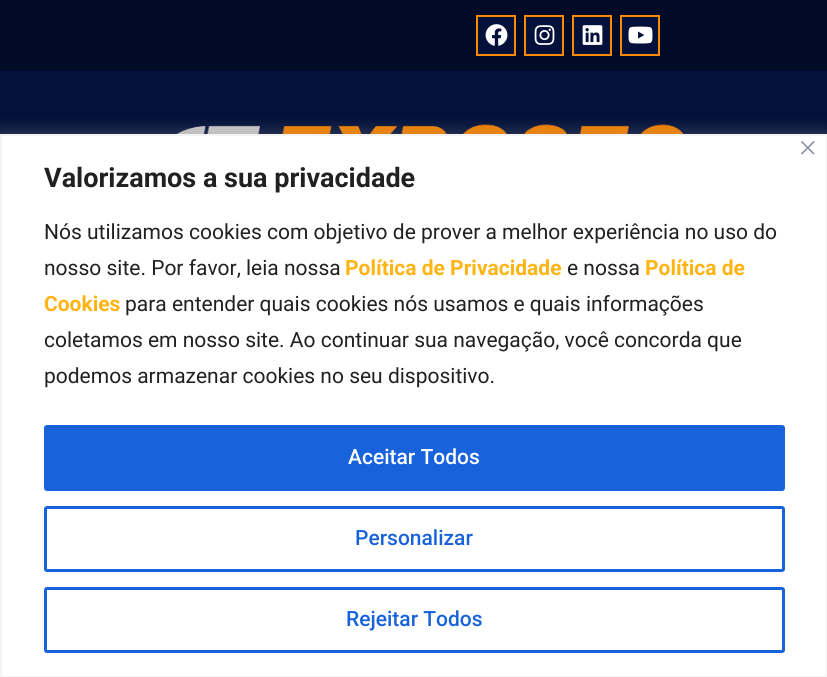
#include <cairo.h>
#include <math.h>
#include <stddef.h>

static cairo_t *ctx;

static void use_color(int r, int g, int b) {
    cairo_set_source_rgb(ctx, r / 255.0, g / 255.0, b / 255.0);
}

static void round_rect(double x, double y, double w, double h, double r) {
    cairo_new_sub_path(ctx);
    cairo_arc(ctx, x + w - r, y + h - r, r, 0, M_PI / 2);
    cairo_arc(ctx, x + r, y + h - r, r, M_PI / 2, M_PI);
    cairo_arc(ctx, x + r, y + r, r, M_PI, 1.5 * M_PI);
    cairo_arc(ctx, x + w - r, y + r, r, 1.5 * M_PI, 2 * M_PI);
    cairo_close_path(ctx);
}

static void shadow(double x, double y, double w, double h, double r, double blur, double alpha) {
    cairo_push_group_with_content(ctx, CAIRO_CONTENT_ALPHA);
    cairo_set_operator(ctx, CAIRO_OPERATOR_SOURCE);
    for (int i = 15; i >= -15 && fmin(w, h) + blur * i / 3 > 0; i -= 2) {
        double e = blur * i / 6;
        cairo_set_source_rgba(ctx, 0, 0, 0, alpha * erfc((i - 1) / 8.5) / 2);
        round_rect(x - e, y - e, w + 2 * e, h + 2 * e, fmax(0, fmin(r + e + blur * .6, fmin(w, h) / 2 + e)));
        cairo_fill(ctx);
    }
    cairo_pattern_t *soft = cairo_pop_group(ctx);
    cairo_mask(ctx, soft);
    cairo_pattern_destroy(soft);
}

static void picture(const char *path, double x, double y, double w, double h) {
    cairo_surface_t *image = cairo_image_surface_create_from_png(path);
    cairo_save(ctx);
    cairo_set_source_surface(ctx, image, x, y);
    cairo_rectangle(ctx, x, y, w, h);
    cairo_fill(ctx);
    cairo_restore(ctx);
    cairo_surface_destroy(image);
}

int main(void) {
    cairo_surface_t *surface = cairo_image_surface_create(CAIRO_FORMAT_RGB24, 827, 677);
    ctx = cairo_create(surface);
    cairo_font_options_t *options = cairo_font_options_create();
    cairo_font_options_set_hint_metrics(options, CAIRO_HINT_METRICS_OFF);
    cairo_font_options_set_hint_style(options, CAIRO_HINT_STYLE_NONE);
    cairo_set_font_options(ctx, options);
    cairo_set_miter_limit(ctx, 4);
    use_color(1, 10, 39);
    cairo_paint(ctx);
    use_color(4, 18, 59);
    cairo_rectangle(ctx, 477, 16, 38, 39);
    cairo_fill_preserve(ctx);
    use_color(254, 138, 2);
    cairo_stroke(ctx);
    picture("img1.png", 485, 24, 23, 22);
    use_color(4, 18, 59);
    cairo_rectangle(ctx, 525, 16, 38, 39);
    cairo_fill_preserve(ctx);
    use_color(254, 138, 2);
    cairo_stroke(ctx);
    picture("img2.png", 534, 25, 21, 20);
    use_color(4, 18, 59);
    cairo_rectangle(ctx, 573, 16, 38, 39);
    cairo_fill_preserve(ctx);
    use_color(254, 138, 2);
    cairo_stroke(ctx);
    picture("img3.png", 582, 25, 21, 20);
    use_color(4, 18, 59);
    cairo_rectangle(ctx, 621, 16, 38, 39);
    cairo_fill_preserve(ctx);
    use_color(254, 138, 2);
    cairo_stroke(ctx);
    picture("img4.png", 628, 26, 25, 18);
    use_color(4, 18, 59);
    cairo_rectangle(ctx, 0, 71, 827, 63);
    cairo_fill(ctx);
    picture("img5.png", 176, 124, 508, 10);
    use_color(172, 171, 171);
    shadow(0, 132, 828, 545, 0, 7.5, 0.3);
    use_color(255, 255, 255);
    cairo_rectangle(ctx, 1, 135, 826, 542);
    cairo_fill_preserve(ctx);
    use_color(244, 244, 244);
    cairo_stroke(ctx);
    picture("img6.png", 801, 141, 14, 14);
    cairo_select_font_face(ctx, "Roboto", CAIRO_FONT_SLANT_NORMAL, CAIRO_FONT_WEIGHT_BOLD);
    cairo_set_font_size(ctx, 27);
    use_color(33, 33, 33);
    cairo_move_to(ctx, 44, 187);
    cairo_show_text(ctx, "Valorizamos a sua privacidade");
    cairo_select_font_face(ctx, "Roboto", CAIRO_FONT_SLANT_NORMAL, CAIRO_FONT_WEIGHT_NORMAL);
    cairo_set_font_size(ctx, 21);
    cairo_move_to(ctx, 44, 239);
    cairo_show_text(ctx, "Nós utilizamos cookies com objetivo de prover a melhor experiência no uso do");
    cairo_move_to(ctx, 44, 275);
    cairo_show_text(ctx, "nosso site. Por favor, leia nossa");
    cairo_select_font_face(ctx, "Roboto", CAIRO_FONT_SLANT_NORMAL, CAIRO_FONT_WEIGHT_BOLD);
    use_color(255, 180, 20);
    cairo_move_to(ctx, 345, 275);
    cairo_show_text(ctx, "Política de Privacidade");
    cairo_select_font_face(ctx, "Roboto", CAIRO_FONT_SLANT_NORMAL, CAIRO_FONT_WEIGHT_NORMAL);
    use_color(33, 33, 33);
    cairo_move_to(ctx, 567, 275);
    cairo_show_text(ctx, "e nossa");
    cairo_select_font_face(ctx, "Roboto", CAIRO_FONT_SLANT_NORMAL, CAIRO_FONT_WEIGHT_BOLD);
    use_color(255, 180, 20);
    cairo_move_to(ctx, 645, 275);
    cairo_show_text(ctx, "Política de");
    cairo_move_to(ctx, 44, 311);
    cairo_show_text(ctx, "Cookies");
    cairo_select_font_face(ctx, "Roboto", CAIRO_FONT_SLANT_NORMAL, CAIRO_FONT_WEIGHT_NORMAL);
    use_color(33, 33, 33);
    cairo_move_to(ctx, 125, 311);
    cairo_show_text(ctx, "para entender quais cookies nós usamos e quais informações");
    cairo_move_to(ctx, 44, 347);
    cairo_show_text(ctx, "coletamos em nosso site. Ao continuar sua navegação, você concorda que");
    cairo_move_to(ctx, 44, 383);
    cairo_show_text(ctx, "podemos armazenar cookies no seu dispositivo.");
    use_color(24, 99, 220);
    round_rect(45.5, 426.5, 738, 63, 1.5);
    cairo_fill_preserve(ctx);
    cairo_set_line_width(ctx, 3);
    cairo_stroke(ctx);
    cairo_select_font_face(ctx, "Roboto Medium", CAIRO_FONT_SLANT_NORMAL, CAIRO_FONT_WEIGHT_NORMAL);
    use_color(255, 255, 255);
    cairo_move_to(ctx, 348, 464);
    cairo_show_text(ctx, "Aceitar Todos");
    round_rect(45.5, 507.5, 738, 63, 1.5);
    use_color(24, 99, 220);
    cairo_stroke(ctx);
    cairo_move_to(ctx, 355, 545);
    cairo_show_text(ctx, "Personalizar");
    round_rect(45.5, 588.5, 738, 63, 1.5);
    cairo_stroke(ctx);
    cairo_move_to(ctx, 346, 626);
    cairo_show_text(ctx, "Rejeitar Todos");
    cairo_surface_write_to_png(surface, "result.png");
    cairo_font_options_destroy(options);
    cairo_destroy(ctx);
    cairo_surface_destroy(surface);
    return 0;
}
